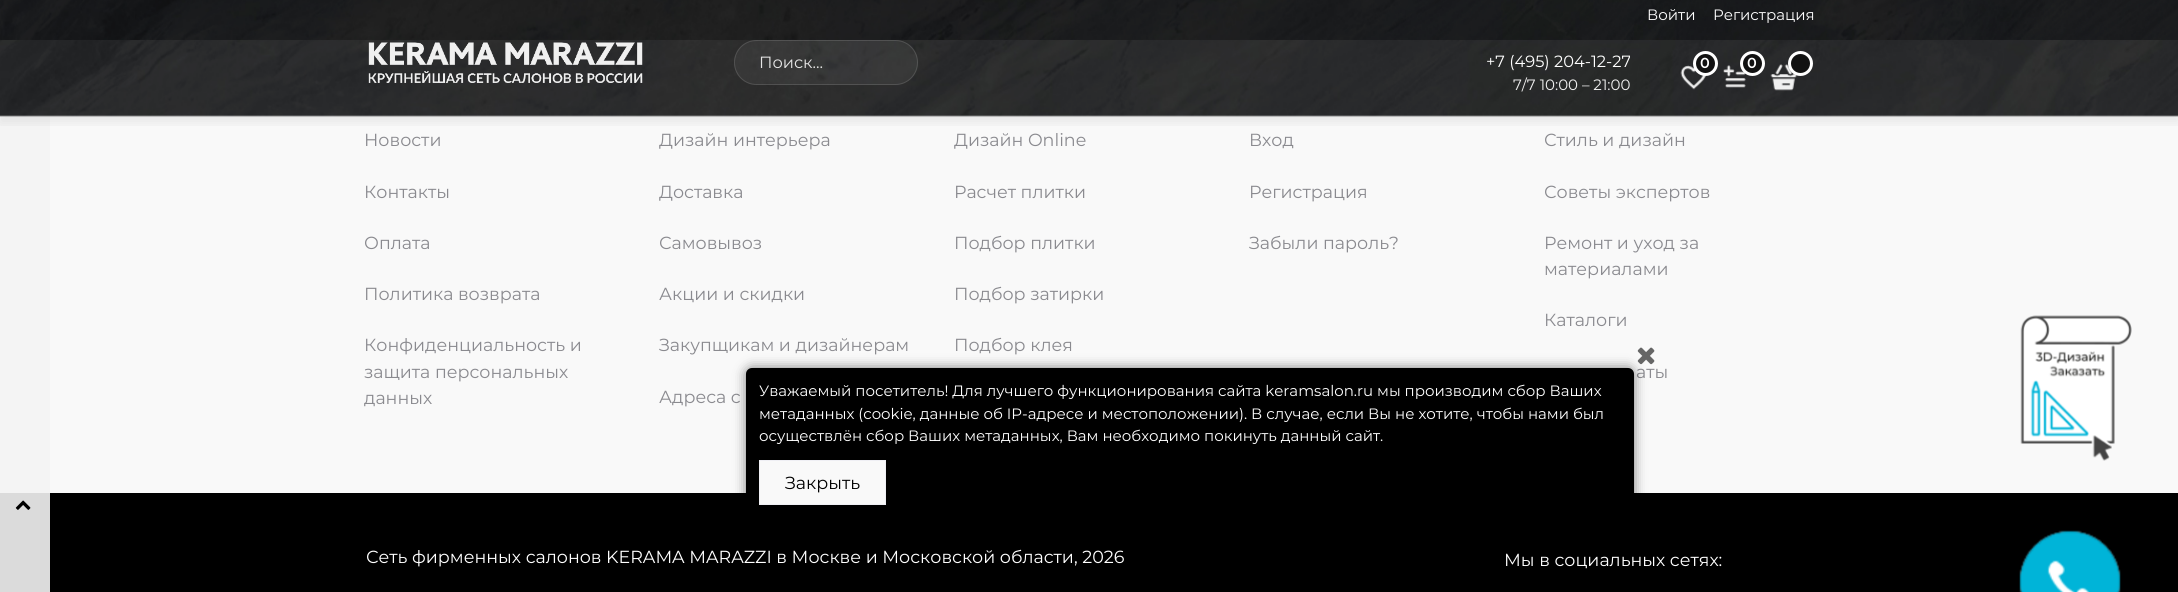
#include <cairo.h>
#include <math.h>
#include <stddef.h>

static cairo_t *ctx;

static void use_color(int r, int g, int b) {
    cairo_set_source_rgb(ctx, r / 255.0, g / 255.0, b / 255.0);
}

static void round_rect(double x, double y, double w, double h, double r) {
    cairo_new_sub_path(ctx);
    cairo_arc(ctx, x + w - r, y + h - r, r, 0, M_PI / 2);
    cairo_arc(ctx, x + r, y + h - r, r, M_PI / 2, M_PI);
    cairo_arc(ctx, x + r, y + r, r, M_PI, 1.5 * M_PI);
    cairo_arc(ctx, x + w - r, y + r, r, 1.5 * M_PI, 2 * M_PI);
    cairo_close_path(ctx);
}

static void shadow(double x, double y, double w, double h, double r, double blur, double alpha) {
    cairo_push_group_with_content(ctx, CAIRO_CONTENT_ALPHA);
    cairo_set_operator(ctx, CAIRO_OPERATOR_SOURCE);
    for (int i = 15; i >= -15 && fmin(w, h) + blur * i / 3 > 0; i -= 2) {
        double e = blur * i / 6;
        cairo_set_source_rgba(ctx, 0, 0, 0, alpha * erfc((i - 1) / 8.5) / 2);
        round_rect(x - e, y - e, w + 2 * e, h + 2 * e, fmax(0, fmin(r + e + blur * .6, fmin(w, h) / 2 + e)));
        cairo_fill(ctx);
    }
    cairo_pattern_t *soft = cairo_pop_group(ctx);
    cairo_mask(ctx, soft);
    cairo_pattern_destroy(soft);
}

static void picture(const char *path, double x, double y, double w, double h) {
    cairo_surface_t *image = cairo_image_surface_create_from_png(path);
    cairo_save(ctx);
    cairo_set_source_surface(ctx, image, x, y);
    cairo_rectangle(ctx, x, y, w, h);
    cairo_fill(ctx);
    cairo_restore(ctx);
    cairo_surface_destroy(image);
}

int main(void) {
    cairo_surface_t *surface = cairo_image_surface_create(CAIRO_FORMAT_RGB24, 2178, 592);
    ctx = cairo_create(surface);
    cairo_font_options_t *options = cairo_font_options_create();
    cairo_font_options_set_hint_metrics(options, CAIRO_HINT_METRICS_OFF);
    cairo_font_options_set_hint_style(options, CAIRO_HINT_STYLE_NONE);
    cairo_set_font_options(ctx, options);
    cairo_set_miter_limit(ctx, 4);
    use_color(249, 249, 249);
    cairo_paint(ctx);
    use_color(244, 244, 244);
    cairo_rectangle(ctx, 0, 0, 50, 493);
    cairo_fill(ctx);
    cairo_save(ctx);
    cairo_rectangle(ctx, 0, 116, 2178, 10);
    cairo_clip(ctx);
    use_color(0, 0, 0);
    shadow(0, 6, 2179, 117, 0, 6, 0.07);
    cairo_restore(ctx);
    picture("img1.png", 0, 0, 2178, 117);
    picture("img2.png", 0, 0, 2178, 40);
    cairo_select_font_face(ctx, "Montserrat", CAIRO_FONT_SLANT_NORMAL, CAIRO_FONT_WEIGHT_NORMAL);
    cairo_set_font_size(ctx, 15);
    use_color(255, 255, 255);
    cairo_move_to(ctx, 1647, 20);
    cairo_show_text(ctx, "Войти");
    cairo_move_to(ctx, 1713, 20);
    cairo_show_text(ctx, "Регистрация");
    picture("img3.png", 368, 42, 275, 41);
    cairo_set_source_rgba(ctx, 0.494, 0.494, 0.494, 0.14);
    round_rect(734, 40, 184, 45, 22.5);
    cairo_fill(ctx);
    round_rect(734.5, 40.5, 183, 44, 22);
    cairo_set_source_rgba(ctx, 0.604, 0.604, 0.604, 0.27);
    cairo_set_line_width(ctx, 1);
    cairo_stroke(ctx);
    cairo_set_font_size(ctx, 16.25);
    use_color(230, 230, 230);
    cairo_move_to(ctx, 759, 68);
    cairo_show_text(ctx, "Поиск…");
    use_color(255, 255, 255);
    cairo_move_to(ctx, 1486, 67);
    cairo_show_text(ctx, "+7 (495) 204-12-27");
    cairo_set_font_size(ctx, 15);
    use_color(240, 240, 240);
    cairo_move_to(ctx, 1513, 90);
    cairo_show_text(ctx, "7/7 10:00 – 21:00");
    picture("img4.png", 1680, 65, 26, 25);
    use_color(17, 17, 17);
    cairo_arc(ctx, 1705.5, 63.5, 11, 0, 2 * M_PI);
    cairo_fill_preserve(ctx);
    use_color(255, 255, 255);
    cairo_set_line_width(ctx, 3);
    cairo_stroke(ctx);
    cairo_select_font_face(ctx, "Montserrat", CAIRO_FONT_SLANT_NORMAL, CAIRO_FONT_WEIGHT_BOLD);
    cairo_set_font_size(ctx, 14);
    cairo_move_to(ctx, 1700, 68);
    cairo_show_text(ctx, "0");
    picture("img5.png", 1723, 65, 23, 23);
    use_color(17, 17, 17);
    cairo_arc(ctx, 1752.5, 63.5, 11, 0, 2 * M_PI);
    cairo_fill_preserve(ctx);
    use_color(255, 255, 255);
    cairo_stroke(ctx);
    cairo_move_to(ctx, 1747, 68);
    cairo_show_text(ctx, "0");
    picture("img6.png", 1770, 64, 27, 27);
    use_color(17, 17, 17);
    cairo_arc(ctx, 1800.5, 63.5, 11, 0, 2 * M_PI);
    cairo_fill_preserve(ctx);
    use_color(255, 255, 255);
    cairo_stroke(ctx);
    use_color(219, 219, 219);
    cairo_rectangle(ctx, 0, 493, 50, 99);
    cairo_fill(ctx);
    picture("img7.png", 15, 500, 16, 10);
    cairo_select_font_face(ctx, "Montserrat", CAIRO_FONT_SLANT_NORMAL, CAIRO_FONT_WEIGHT_NORMAL);
    cairo_set_font_size(ctx, 17.5);
    use_color(138, 138, 143);
    cairo_move_to(ctx, 364, 146);
    cairo_show_text(ctx, "Новости");
    cairo_move_to(ctx, 364, 198);
    cairo_show_text(ctx, "Контакты");
    cairo_move_to(ctx, 364, 249);
    cairo_show_text(ctx, "Оплата");
    cairo_move_to(ctx, 364, 300);
    cairo_show_text(ctx, "Политика возврата");
    cairo_move_to(ctx, 364, 351);
    cairo_show_text(ctx, "Конфиденциальность и");
    cairo_move_to(ctx, 364, 378);
    cairo_show_text(ctx, "защита персональных");
    cairo_move_to(ctx, 364, 404);
    cairo_show_text(ctx, "данных");
    cairo_move_to(ctx, 659, 146);
    cairo_show_text(ctx, "Дизайн интерьера");
    cairo_move_to(ctx, 659, 198);
    cairo_show_text(ctx, "Доставка");
    cairo_move_to(ctx, 659, 249);
    cairo_show_text(ctx, "Самовывоз");
    cairo_move_to(ctx, 659, 300);
    cairo_show_text(ctx, "Акции и скидки");
    cairo_move_to(ctx, 659, 351);
    cairo_show_text(ctx, "Закупщикам и дизайнерам");
    cairo_move_to(ctx, 659, 403);
    cairo_show_text(ctx, "Адреса с");
    cairo_move_to(ctx, 954, 146);
    cairo_show_text(ctx, "Дизайн Online");
    cairo_move_to(ctx, 954, 198);
    cairo_show_text(ctx, "Расчет плитки");
    cairo_move_to(ctx, 954, 249);
    cairo_show_text(ctx, "Подбор плитки");
    cairo_move_to(ctx, 954, 300);
    cairo_show_text(ctx, "Подбор затирки");
    cairo_move_to(ctx, 954, 351);
    cairo_show_text(ctx, "Подбор клея");
    cairo_move_to(ctx, 1249, 146);
    cairo_show_text(ctx, "Вход");
    cairo_move_to(ctx, 1249, 198);
    cairo_show_text(ctx, "Регистрация");
    cairo_move_to(ctx, 1249, 249);
    cairo_show_text(ctx, "Забыли пароль?");
    cairo_move_to(ctx, 1544, 146);
    cairo_show_text(ctx, "Стиль и дизайн");
    cairo_move_to(ctx, 1544, 198);
    cairo_show_text(ctx, "Советы экспертов");
    cairo_move_to(ctx, 1544, 249);
    cairo_show_text(ctx, "Ремонт и уход за");
    cairo_move_to(ctx, 1544, 275);
    cairo_show_text(ctx, "материалами");
    cairo_move_to(ctx, 1544, 326);
    cairo_show_text(ctx, "Каталоги");
    cairo_move_to(ctx, 1636, 378);
    cairo_show_text(ctx, "аты");
    use_color(0, 0, 0);
    cairo_rectangle(ctx, 50, 493, 2128, 99);
    cairo_fill(ctx);
    use_color(255, 255, 255);
    cairo_move_to(ctx, 366, 563);
    cairo_show_text(ctx, "Сеть фирменных салонов KERAMA MARAZZI в Москве и Московской области, 2026");
    cairo_move_to(ctx, 1504, 566);
    cairo_show_text(ctx, "Мы в социальных сетях:");
    picture("img8.png", 2020, 315, 112, 146);
    picture("img9.png", 2019, 530, 102, 62);
    use_color(0, 0, 0);
    shadow(746, 368, 888, 150, 6, 6, 0.5);
    use_color(0, 0, 0);
    round_rect(746, 368, 888, 150, 6);
    cairo_fill(ctx);
    picture("img10.png", 1637, 347, 18, 18);
    cairo_set_font_size(ctx, 15);
    use_color(255, 255, 255);
    cairo_move_to(ctx, 759, 396);
    cairo_show_text(ctx, "Уважаемый посетитель! Для лучшего функционирования сайта keramsalon.ru мы производим сбор Ваших");
    cairo_move_to(ctx, 759, 419);
    cairo_show_text(ctx, "метаданных (cookie, данные об IP-адресе и местоположении). В случае, если Вы не хотите, чтобы нами был");
    cairo_move_to(ctx, 759, 441);
    cairo_show_text(ctx, "осуществлён сбор Ваших метаданных, Вам необходимо покинуть данный сайт.");
    use_color(249, 249, 249);
    cairo_rectangle(ctx, 759.5, 460.5, 126, 44);
    cairo_fill_preserve(ctx);
    use_color(239, 239, 244);
    cairo_set_line_width(ctx, 1);
    cairo_stroke(ctx);
    cairo_set_font_size(ctx, 17.5);
    use_color(0, 0, 0);
    cairo_move_to(ctx, 785, 489);
    cairo_show_text(ctx, "Закрыть");
    cairo_surface_write_to_png(surface, "result.png");
    cairo_font_options_destroy(options);
    cairo_destroy(ctx);
    cairo_surface_destroy(surface);
    return 0;
}
